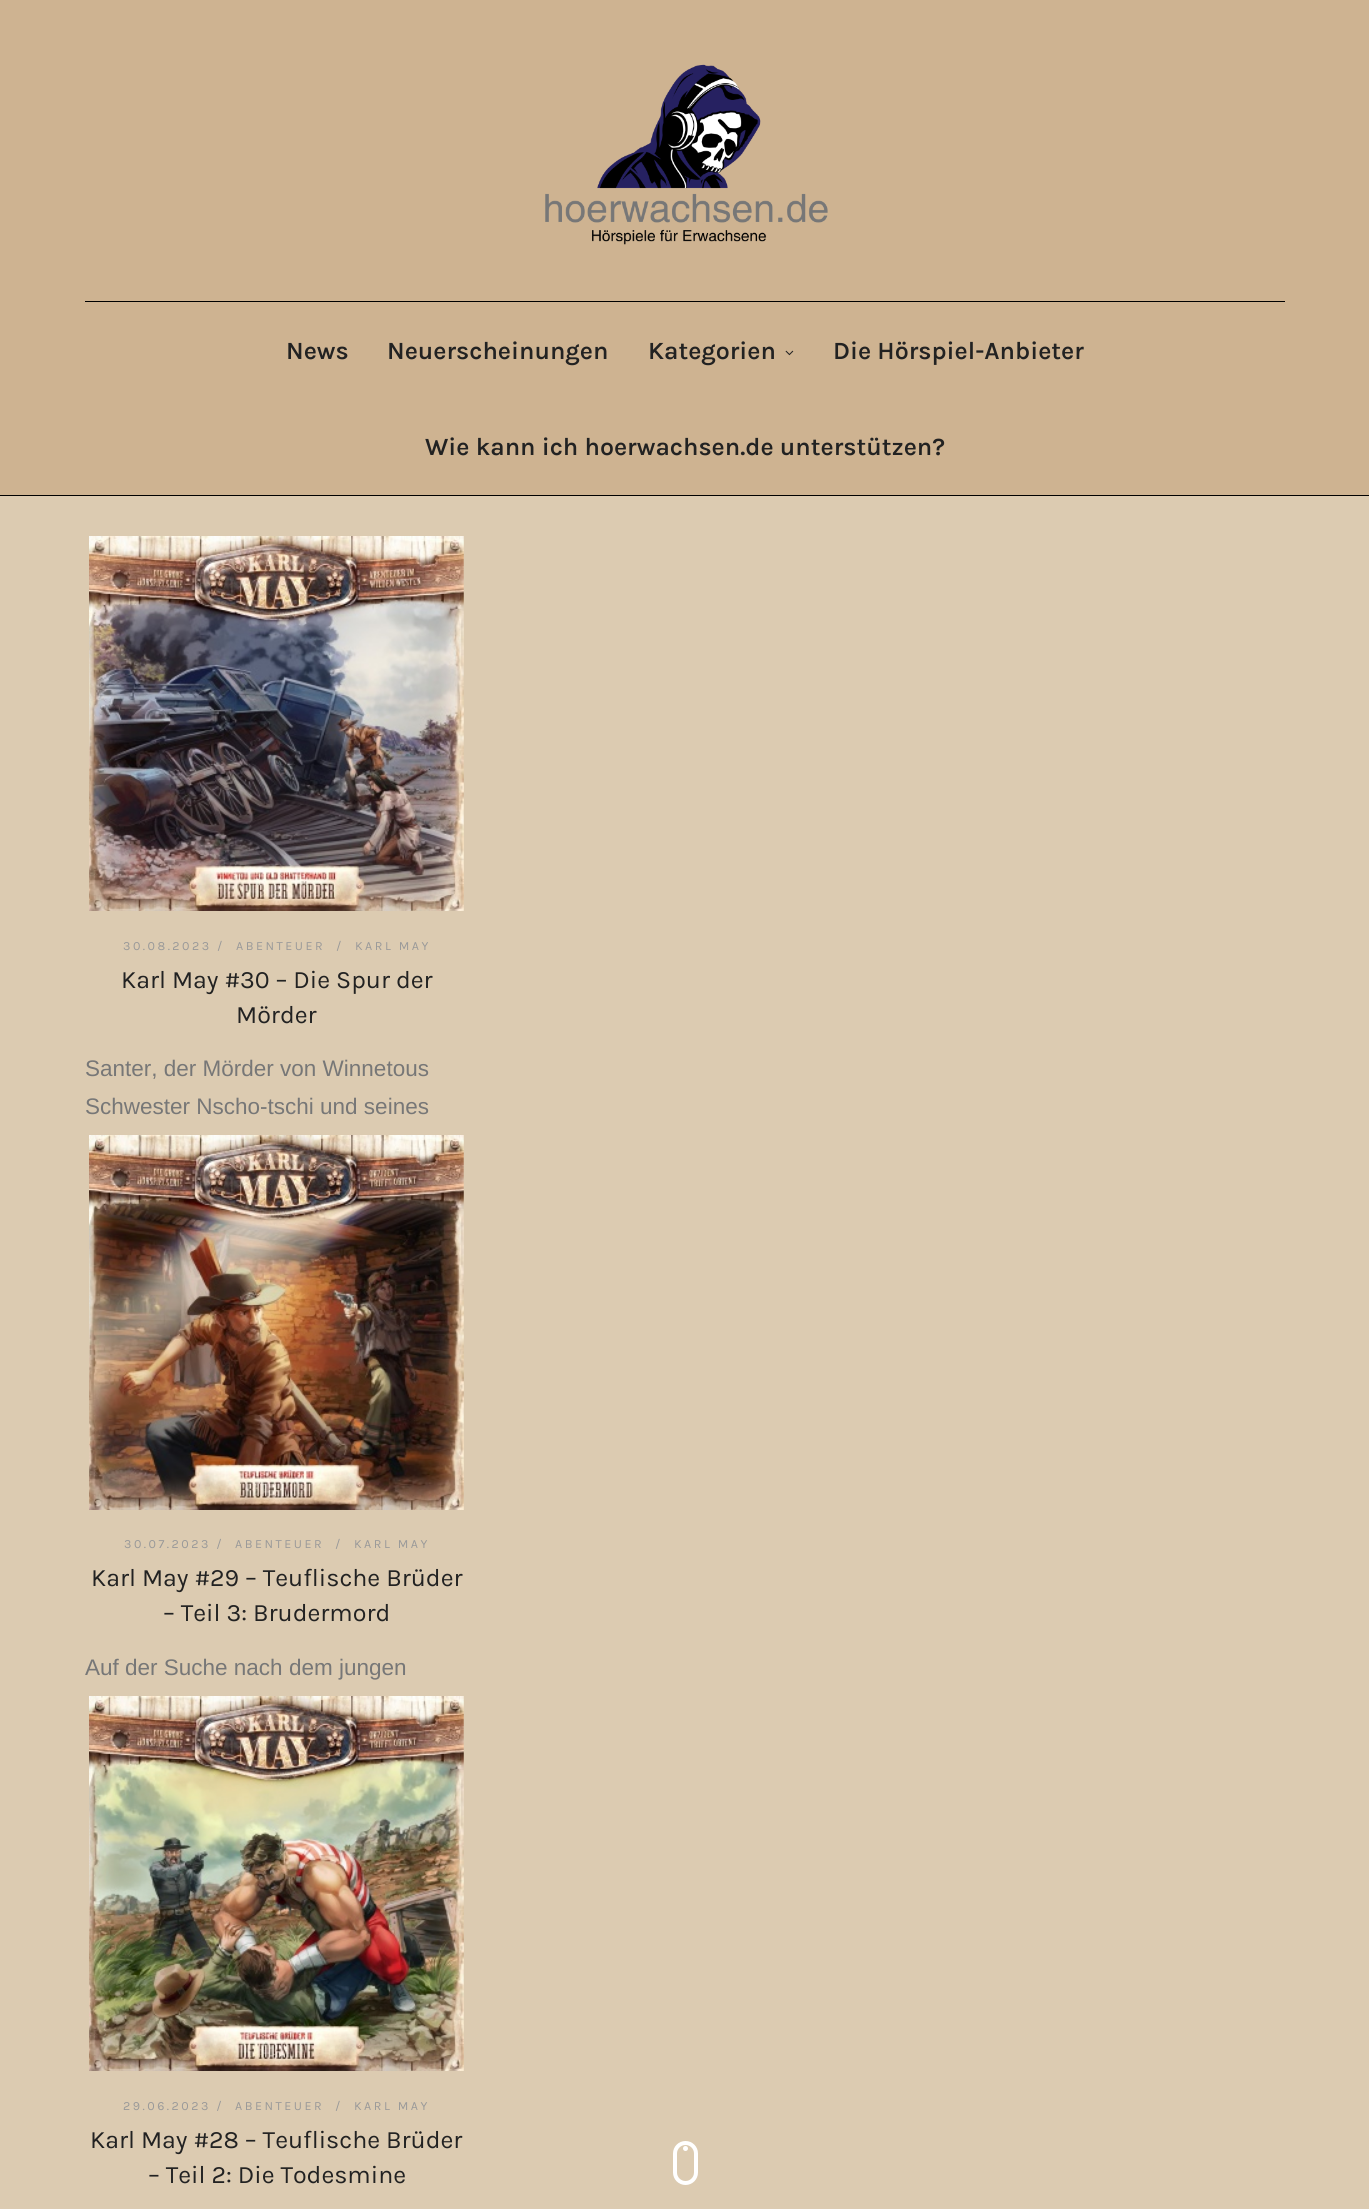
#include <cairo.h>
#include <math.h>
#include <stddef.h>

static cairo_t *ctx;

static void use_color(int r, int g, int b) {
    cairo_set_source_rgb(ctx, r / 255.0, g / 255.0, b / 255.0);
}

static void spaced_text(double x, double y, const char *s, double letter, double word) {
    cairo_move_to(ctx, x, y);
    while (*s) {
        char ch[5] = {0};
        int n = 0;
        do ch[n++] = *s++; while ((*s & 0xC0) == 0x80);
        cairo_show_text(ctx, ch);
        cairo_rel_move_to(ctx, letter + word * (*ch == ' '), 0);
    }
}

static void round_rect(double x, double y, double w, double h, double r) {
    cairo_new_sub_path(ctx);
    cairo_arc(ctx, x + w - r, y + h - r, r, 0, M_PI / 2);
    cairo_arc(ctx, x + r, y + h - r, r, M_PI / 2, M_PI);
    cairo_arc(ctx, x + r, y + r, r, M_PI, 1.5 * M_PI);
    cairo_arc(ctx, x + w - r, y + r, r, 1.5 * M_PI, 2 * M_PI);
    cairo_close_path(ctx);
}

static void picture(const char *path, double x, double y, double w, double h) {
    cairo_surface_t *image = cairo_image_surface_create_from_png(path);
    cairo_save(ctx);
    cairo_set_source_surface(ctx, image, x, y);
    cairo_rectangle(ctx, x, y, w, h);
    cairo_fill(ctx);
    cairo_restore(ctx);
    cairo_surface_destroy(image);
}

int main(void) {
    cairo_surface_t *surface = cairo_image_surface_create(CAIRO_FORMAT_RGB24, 1369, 2209);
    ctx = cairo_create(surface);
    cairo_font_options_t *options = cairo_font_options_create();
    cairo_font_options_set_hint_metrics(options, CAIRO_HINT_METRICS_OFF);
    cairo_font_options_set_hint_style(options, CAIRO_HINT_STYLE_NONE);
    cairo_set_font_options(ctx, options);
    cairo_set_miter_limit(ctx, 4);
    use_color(220, 203, 177);
    cairo_paint(ctx);
    use_color(206, 179, 145);
    cairo_rectangle(ctx, 0, 0, 1369, 495);
    cairo_fill(ctx);
    use_color(0, 0, 0);
    cairo_rectangle(ctx, 0, 495, 1369, 1);
    cairo_fill(ctx);
    picture("img1.png", 545, 64, 283, 181);
    cairo_rectangle(ctx, 85, 301, 1200, 1);
    cairo_fill(ctx);
    cairo_select_font_face(ctx, "Karla SemiBold", CAIRO_FONT_SLANT_NORMAL, CAIRO_FONT_WEIGHT_NORMAL);
    cairo_set_font_size(ctx, 25);
    use_color(34, 34, 34);
    cairo_move_to(ctx, 286, 359);
    cairo_show_text(ctx, "News");
    cairo_move_to(ctx, 387, 359);
    cairo_show_text(ctx, "Neuerscheinungen");
    cairo_move_to(ctx, 648, 359);
    cairo_show_text(ctx, "Kategorien");
    picture("img2.png", 785, 350, 9, 6);
    cairo_move_to(ctx, 833, 359);
    cairo_show_text(ctx, "Die Hörspiel-Anbieter");
    cairo_move_to(ctx, 425, 455);
    cairo_show_text(ctx, "Wie kann ich hoerwachsen.de unterstützen?");
    picture("img3.png", 89, 536, 375, 375);
    cairo_select_font_face(ctx, "Karla", CAIRO_FONT_SLANT_NORMAL, CAIRO_FONT_WEIGHT_NORMAL);
    cairo_set_font_size(ctx, 12.5);
    use_color(153, 153, 153);
    spaced_text(123, 950, "30.08.2023 /", 2.5, 0);
    spaced_text(236, 950, "ABENTEUER", 2.5, 0);
    spaced_text(336, 950, "/", 2.5, 0);
    spaced_text(355, 950, "KARL MAY", 2.5, 0);
    cairo_set_font_size(ctx, 25);
    use_color(34, 34, 34);
    cairo_move_to(ctx, 121, 988);
    cairo_show_text(ctx, "Karl May #30 – Die Spur der");
    cairo_move_to(ctx, 236, 1023);
    cairo_show_text(ctx, "Mörder");
    cairo_select_font_face(ctx, "Liberation Sans", CAIRO_FONT_SLANT_NORMAL, CAIRO_FONT_WEIGHT_NORMAL);
    cairo_set_font_size(ctx, 22.5);
    use_color(119, 119, 119);
    cairo_move_to(ctx, 85, 1076);
    cairo_show_text(ctx, "Santer, der Mörder von Winnetous");
    cairo_move_to(ctx, 85, 1114);
    cairo_show_text(ctx, "Schwester Nscho-tschi und seines");
    picture("img4.png", 89, 1135, 375, 375);
    cairo_select_font_face(ctx, "Karla", CAIRO_FONT_SLANT_NORMAL, CAIRO_FONT_WEIGHT_NORMAL);
    cairo_set_font_size(ctx, 12.5);
    use_color(153, 153, 153);
    spaced_text(124, 1548, "30.07.2023 /", 2.5, 0);
    spaced_text(235, 1548, "ABENTEUER", 2.5, 0);
    spaced_text(335, 1548, "/", 2.5, 0);
    spaced_text(354, 1548, "KARL MAY", 2.5, 0);
    cairo_set_font_size(ctx, 25);
    use_color(34, 34, 34);
    cairo_move_to(ctx, 91, 1586);
    cairo_show_text(ctx, "Karl May #29 – Teuflische Brüder");
    cairo_move_to(ctx, 163, 1621);
    cairo_show_text(ctx, "– Teil 3: Brudermord");
    cairo_select_font_face(ctx, "Liberation Sans", CAIRO_FONT_SLANT_NORMAL, CAIRO_FONT_WEIGHT_NORMAL);
    cairo_set_font_size(ctx, 22.5);
    use_color(119, 119, 119);
    cairo_move_to(ctx, 85, 1675);
    cairo_show_text(ctx, "Auf der Suche nach dem jungen");
    picture("img5.png", 89, 1696, 375, 375);
    cairo_select_font_face(ctx, "Karla", CAIRO_FONT_SLANT_NORMAL, CAIRO_FONT_WEIGHT_NORMAL);
    cairo_set_font_size(ctx, 12.5);
    use_color(153, 153, 153);
    spaced_text(123, 2110, "29.06.2023 /", 2.5, 0);
    spaced_text(235, 2110, "ABENTEUER", 2.5, 0);
    spaced_text(335, 2110, "/", 2.5, 0);
    spaced_text(354, 2110, "KARL MAY", 2.5, 0);
    cairo_set_font_size(ctx, 25);
    use_color(34, 34, 34);
    cairo_move_to(ctx, 90, 2148);
    cairo_show_text(ctx, "Karl May #28 – Teuflische Brüder");
    cairo_move_to(ctx, 148, 2183);
    cairo_show_text(ctx, "– Teil 2: Die Todesmine");
    round_rect(675, 2143, 21, 40, 10.5);
    use_color(255, 255, 255);
    cairo_set_line_width(ctx, 4);
    cairo_stroke(ctx);
    cairo_arc(ctx, 685.5, 2148.5, 2.5, 0, 2 * M_PI);
    cairo_fill(ctx);
    cairo_surface_write_to_png(surface, "result.png");
    cairo_font_options_destroy(options);
    cairo_destroy(ctx);
    cairo_surface_destroy(surface);
    return 0;
}
